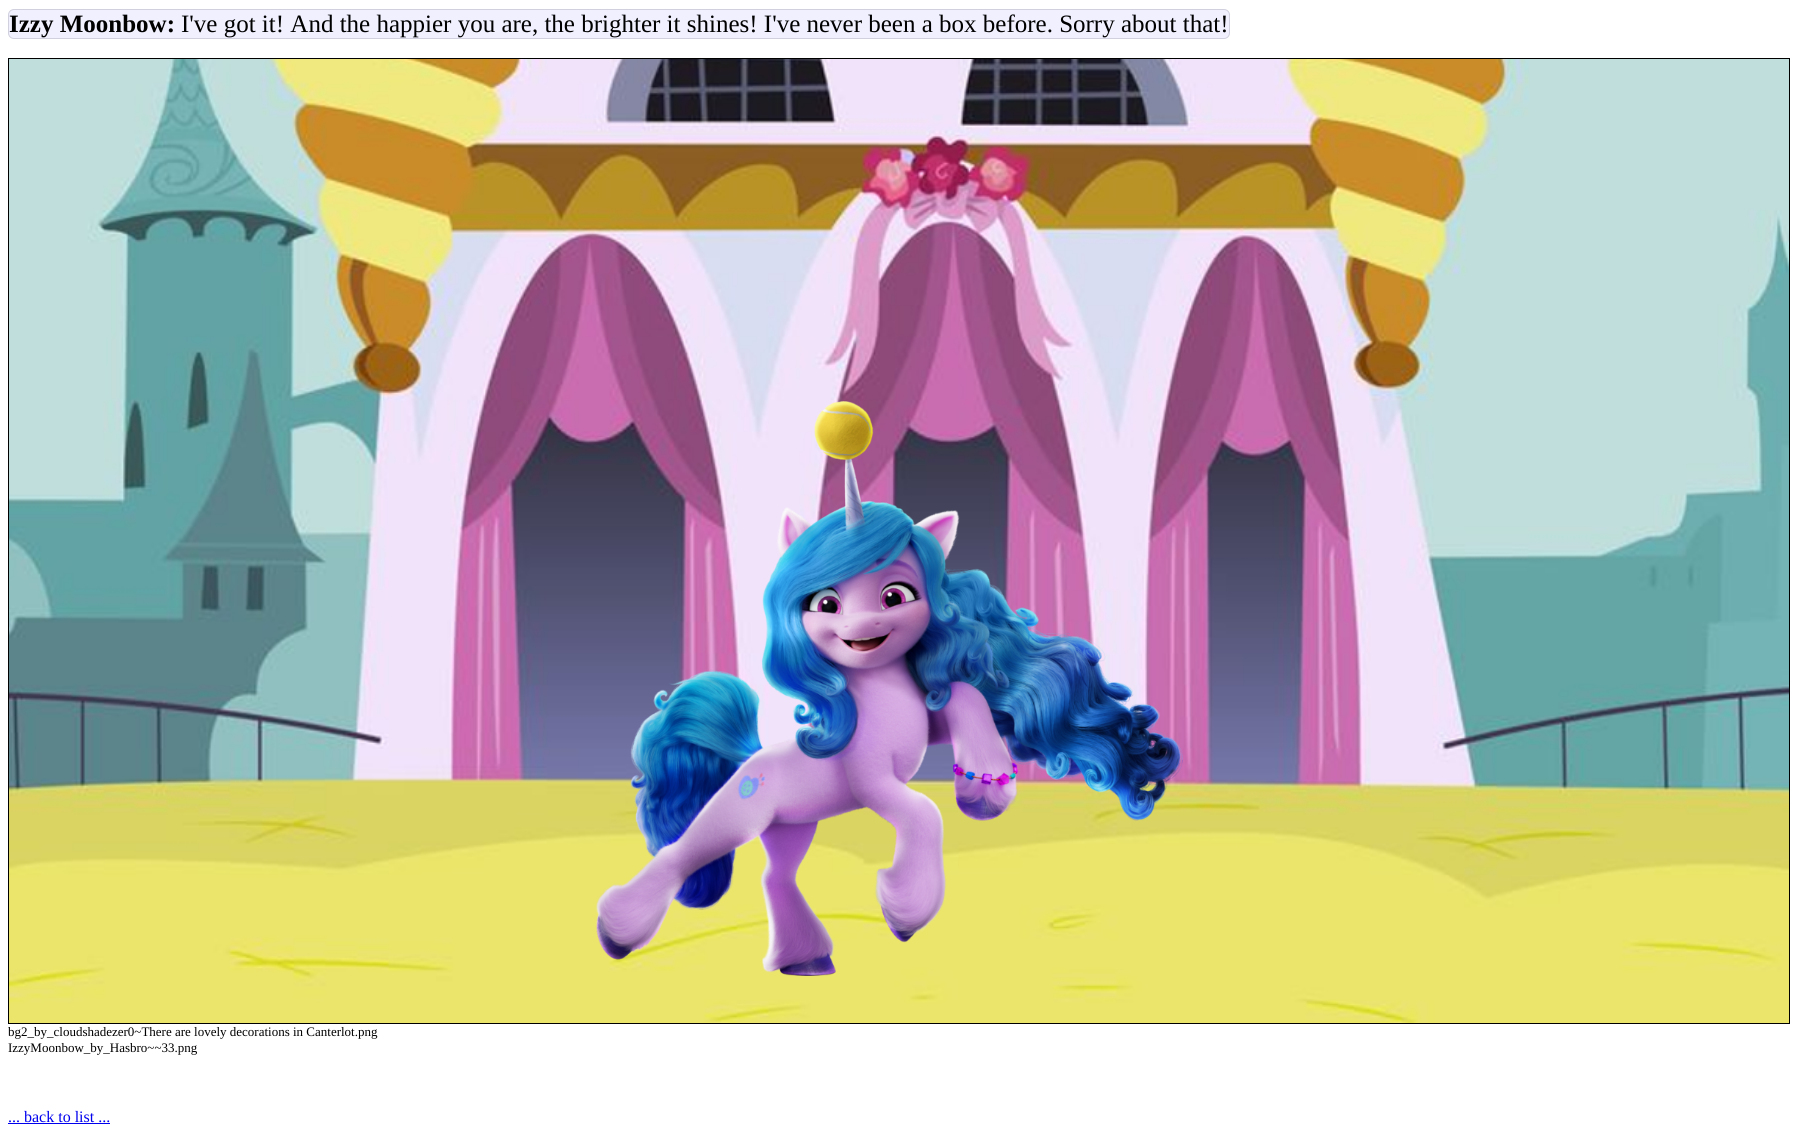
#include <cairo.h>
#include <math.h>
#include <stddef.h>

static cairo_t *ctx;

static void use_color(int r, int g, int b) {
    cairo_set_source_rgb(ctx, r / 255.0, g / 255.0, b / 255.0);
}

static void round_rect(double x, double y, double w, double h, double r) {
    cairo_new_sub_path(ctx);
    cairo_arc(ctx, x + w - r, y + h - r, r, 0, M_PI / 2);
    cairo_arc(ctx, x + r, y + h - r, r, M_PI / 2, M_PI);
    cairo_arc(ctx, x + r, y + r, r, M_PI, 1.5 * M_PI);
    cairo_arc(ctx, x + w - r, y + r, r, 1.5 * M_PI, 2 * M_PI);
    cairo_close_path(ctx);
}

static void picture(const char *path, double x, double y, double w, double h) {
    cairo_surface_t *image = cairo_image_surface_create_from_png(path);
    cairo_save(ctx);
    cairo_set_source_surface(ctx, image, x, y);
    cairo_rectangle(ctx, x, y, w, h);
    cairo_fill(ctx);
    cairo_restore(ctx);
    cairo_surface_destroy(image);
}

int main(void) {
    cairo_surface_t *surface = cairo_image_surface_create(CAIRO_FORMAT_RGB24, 1796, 1136);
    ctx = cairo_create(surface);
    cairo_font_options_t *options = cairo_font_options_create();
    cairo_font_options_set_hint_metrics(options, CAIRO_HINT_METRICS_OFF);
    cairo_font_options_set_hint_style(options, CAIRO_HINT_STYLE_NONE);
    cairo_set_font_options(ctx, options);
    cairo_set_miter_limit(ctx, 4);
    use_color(255, 255, 255);
    cairo_paint(ctx);
    use_color(240, 240, 255);
    round_rect(8.5, 9.5, 1221, 29, 5.5);
    cairo_fill_preserve(ctx);
    use_color(208, 208, 223);
    cairo_set_line_width(ctx, 1);
    cairo_stroke(ctx);
    cairo_select_font_face(ctx, "Liberation Serif", CAIRO_FONT_SLANT_NORMAL, CAIRO_FONT_WEIGHT_BOLD);
    cairo_set_font_size(ctx, 25);
    use_color(0, 0, 0);
    cairo_move_to(ctx, 9, 32);
    cairo_show_text(ctx, "Izzy Moonbow:");
    cairo_select_font_face(ctx, "Liberation Serif", CAIRO_FONT_SLANT_NORMAL, CAIRO_FONT_WEIGHT_NORMAL);
    cairo_move_to(ctx, 181, 32);
    cairo_show_text(ctx, "I've got it! And the happier you are, the brighter it shines! I've never been a box before. Sorry about that!");
    cairo_rectangle(ctx, 8.5, 58.5, 1781, 965);
    cairo_stroke(ctx);
    picture("img1.png", 9, 59, 1780, 964);
    picture("img2.png", 595, 401, 588, 575);
    cairo_set_font_size(ctx, 13);
    cairo_move_to(ctx, 8, 1036);
    cairo_show_text(ctx, "bg2_by_cloudshadezer0~There are lovely decorations in Canterlot.png");
    cairo_move_to(ctx, 8, 1052);
    cairo_show_text(ctx, "IzzyMoonbow_by_Hasbro~~33.png");
    cairo_set_font_size(ctx, 16);
    use_color(0, 0, 238);
    cairo_move_to(ctx, 8, 1122);
    cairo_show_text(ctx, "... back to list ...");
    cairo_rectangle(ctx, 8, 1123, 102, 1);
    cairo_fill(ctx);
    cairo_surface_write_to_png(surface, "result.png");
    cairo_font_options_destroy(options);
    cairo_destroy(ctx);
    cairo_surface_destroy(surface);
    return 0;
}
